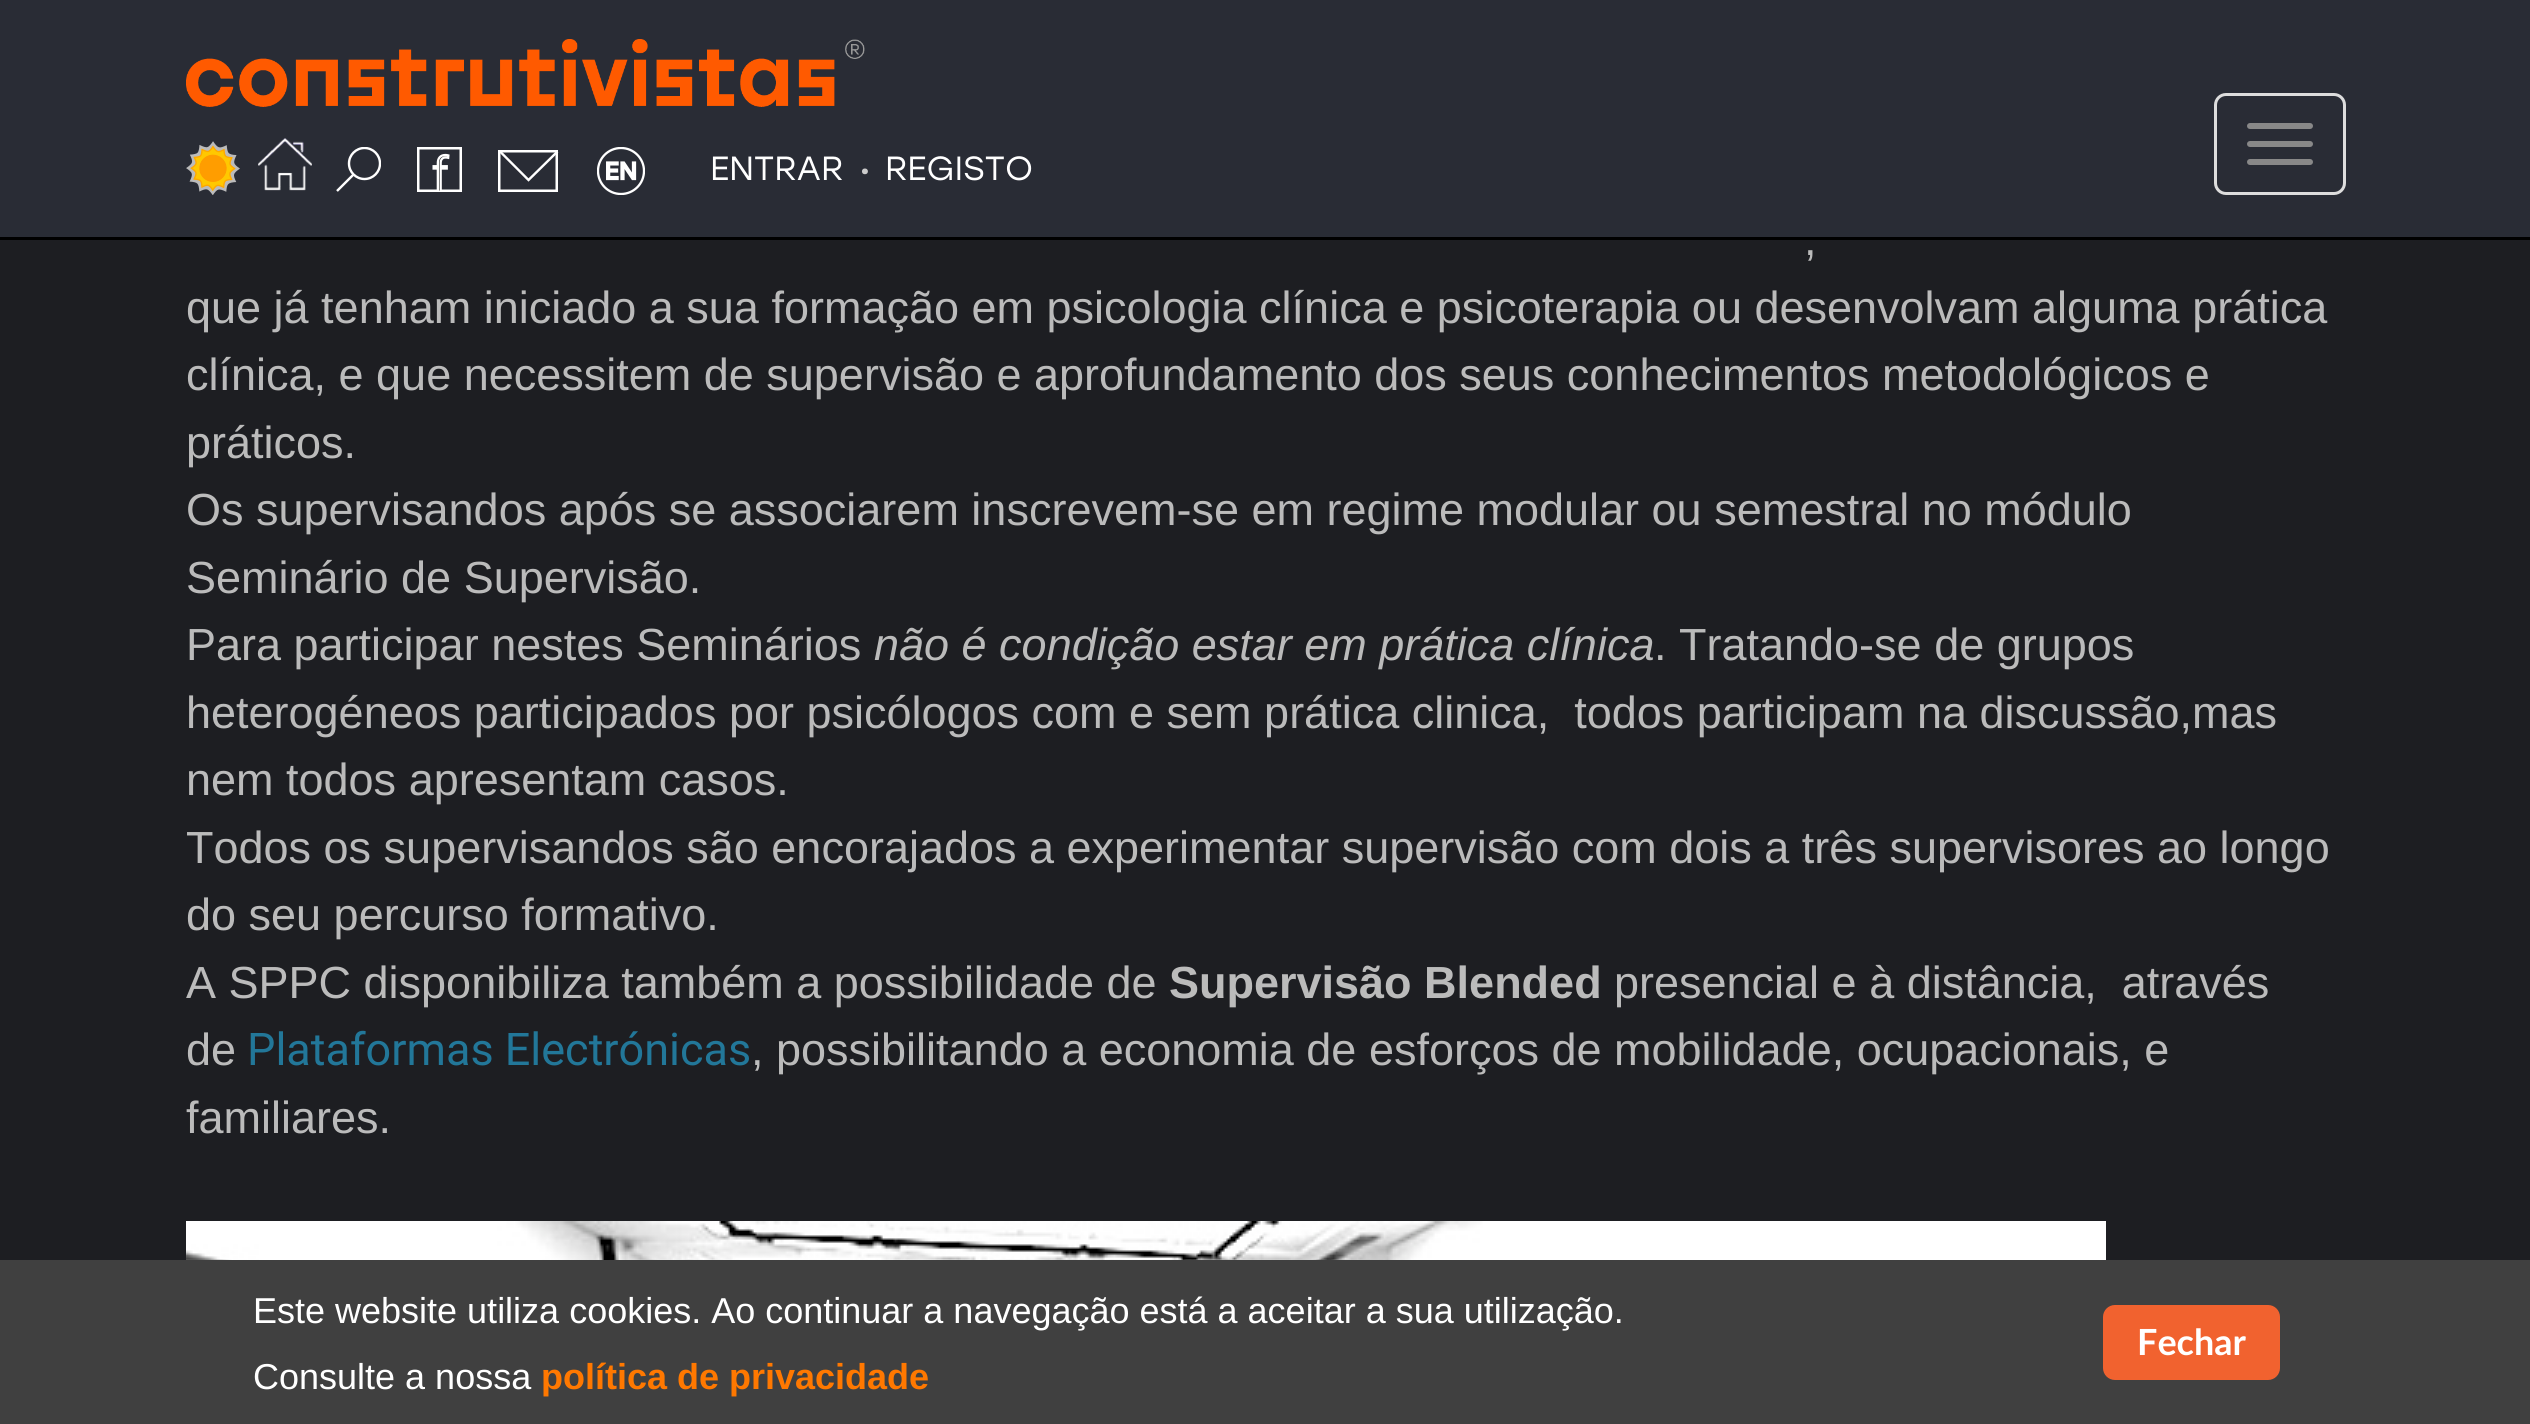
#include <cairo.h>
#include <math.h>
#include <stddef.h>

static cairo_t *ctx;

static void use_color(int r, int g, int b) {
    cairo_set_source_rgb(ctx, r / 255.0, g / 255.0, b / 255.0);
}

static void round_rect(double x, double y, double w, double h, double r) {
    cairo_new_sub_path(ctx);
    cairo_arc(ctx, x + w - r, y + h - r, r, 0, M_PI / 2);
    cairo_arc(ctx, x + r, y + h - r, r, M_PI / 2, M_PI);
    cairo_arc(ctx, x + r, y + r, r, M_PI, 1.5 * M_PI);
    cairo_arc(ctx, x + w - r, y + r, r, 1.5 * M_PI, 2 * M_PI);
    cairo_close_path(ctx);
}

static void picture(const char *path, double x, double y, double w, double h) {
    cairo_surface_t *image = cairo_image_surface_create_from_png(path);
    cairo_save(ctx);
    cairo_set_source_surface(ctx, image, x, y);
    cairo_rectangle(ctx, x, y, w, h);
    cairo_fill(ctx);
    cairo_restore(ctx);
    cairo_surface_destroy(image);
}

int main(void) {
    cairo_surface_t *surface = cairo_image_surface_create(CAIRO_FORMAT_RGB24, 2530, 1424);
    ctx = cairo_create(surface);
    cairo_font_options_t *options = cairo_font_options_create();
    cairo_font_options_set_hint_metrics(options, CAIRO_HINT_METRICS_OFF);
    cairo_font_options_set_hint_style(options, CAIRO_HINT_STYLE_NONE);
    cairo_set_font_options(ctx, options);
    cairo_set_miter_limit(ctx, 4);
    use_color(29, 30, 34);
    cairo_paint(ctx);
    use_color(41, 44, 53);
    cairo_rectangle(ctx, 0, 0, 2530, 237);
    cairo_fill(ctx);
    use_color(0, 0, 0);
    cairo_rectangle(ctx, 0, 237, 2530, 3);
    cairo_fill(ctx);
    picture("img1.png", 186, 39, 679, 68);
    picture("img2.png", 186, 141, 54, 54);
    picture("img3.png", 258, 138, 54, 53);
    cairo_save(ctx);
    cairo_rectangle(ctx, 336, 147, 45, 45);
    cairo_clip(ctx);
    cairo_arc(ctx, 364.5, 163.5, 15.5, 0, 2 * M_PI);
    use_color(255, 255, 255);
    cairo_set_line_width(ctx, 2.4);
    cairo_stroke(ctx);
    cairo_restore(ctx);
    cairo_new_path(ctx);
    cairo_move_to(ctx, 354, 174);
    cairo_line_to(ctx, 337, 191);
    use_color(255, 255, 255);
    cairo_set_line_width(ctx, 2.4);
    cairo_stroke(ctx);
    picture("img4.png", 417, 147, 45, 45);
    cairo_rectangle(ctx, 499.25, 151.25, 57.5, 39.5);
    cairo_set_line_width(ctx, 2.5);
    cairo_stroke(ctx);
    cairo_new_path(ctx);
    cairo_move_to(ctx, 557.5, 151.5);
    cairo_line_to(ctx, 528.5, 180);
    cairo_line_to(ctx, 500, 151.5);
    cairo_set_line_width(ctx, 2.4);
    cairo_stroke(ctx);
    picture("img5.png", 597, 147, 48, 48);
    cairo_select_font_face(ctx, "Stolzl", CAIRO_FONT_SLANT_NORMAL, CAIRO_FONT_WEIGHT_NORMAL);
    cairo_set_font_size(ctx, 33.5);
    cairo_move_to(ctx, 710, 180);
    cairo_show_text(ctx, "ENTRAR");
    cairo_select_font_face(ctx, "Roboto", CAIRO_FONT_SLANT_NORMAL, CAIRO_FONT_WEIGHT_BOLD);
    cairo_set_font_size(ctx, 42);
    use_color(204, 204, 204);
    cairo_move_to(ctx, 859, 174);
    cairo_show_text(ctx, ".");
    cairo_select_font_face(ctx, "Stolzl", CAIRO_FONT_SLANT_NORMAL, CAIRO_FONT_WEIGHT_NORMAL);
    cairo_set_font_size(ctx, 33.5);
    use_color(255, 255, 255);
    cairo_move_to(ctx, 885, 180);
    cairo_show_text(ctx, "REGISTO");
    round_rect(2215.5, 94.5, 129, 99, 10.5);
    use_color(221, 221, 221);
    cairo_set_line_width(ctx, 3);
    cairo_stroke(ctx);
    use_color(136, 136, 136);
    round_rect(2247, 123, 66, 6, 3);
    cairo_fill(ctx);
    round_rect(2247, 141, 66, 6, 3);
    cairo_fill(ctx);
    round_rect(2247, 159, 66, 6, 3);
    cairo_fill(ctx);
    cairo_select_font_face(ctx, "Liberation Sans", CAIRO_FONT_SLANT_NORMAL, CAIRO_FONT_WEIGHT_NORMAL);
    cairo_set_font_size(ctx, 45);
    use_color(187, 187, 187);
    cairo_move_to(ctx, 1804, 255);
    cairo_show_text(ctx, ",");
    cairo_move_to(ctx, 186, 323);
    cairo_show_text(ctx, "que já tenham iniciado a sua formação em psicologia clínica e psicoterapia ou desenvolvam alguma prática");
    cairo_move_to(ctx, 186, 390);
    cairo_show_text(ctx, "clínica, e que necessitem de supervisão e aprofundamento dos seus conhecimentos metodológicos e");
    cairo_move_to(ctx, 186, 458);
    cairo_show_text(ctx, "práticos.");
    cairo_move_to(ctx, 186, 525);
    cairo_show_text(ctx, "Os supervisandos após se associarem inscrevem-se em regime modular ou semestral no módulo");
    cairo_move_to(ctx, 186, 593);
    cairo_show_text(ctx, "Seminário de Supervisão.");
    cairo_move_to(ctx, 186, 660);
    cairo_show_text(ctx, "Para participar nestes Seminários");
    cairo_select_font_face(ctx, "Liberation Sans", CAIRO_FONT_SLANT_ITALIC, CAIRO_FONT_WEIGHT_NORMAL);
    cairo_move_to(ctx, 874, 660);
    cairo_show_text(ctx, "não é condição estar em prática clínica");
    cairo_select_font_face(ctx, "Liberation Sans", CAIRO_FONT_SLANT_NORMAL, CAIRO_FONT_WEIGHT_NORMAL);
    cairo_move_to(ctx, 1654, 660);
    cairo_show_text(ctx, ". Tratando-se de grupos");
    cairo_move_to(ctx, 186, 728);
    cairo_show_text(ctx, "heterogéneos participados por psicólogos com e sem prática clinica,  todos participam na discussão,mas");
    cairo_move_to(ctx, 186, 795);
    cairo_show_text(ctx, "nem todos apresentam casos.");
    cairo_move_to(ctx, 186, 863);
    cairo_show_text(ctx, "Todos os supervisandos são encorajados a experimentar supervisão com dois a três supervisores ao longo");
    cairo_move_to(ctx, 186, 930);
    cairo_show_text(ctx, "do seu percurso formativo.");
    cairo_move_to(ctx, 186, 998);
    cairo_show_text(ctx, "A SPPC disponibiliza também a possibilidade de");
    cairo_select_font_face(ctx, "Liberation Sans", CAIRO_FONT_SLANT_NORMAL, CAIRO_FONT_WEIGHT_BOLD);
    cairo_move_to(ctx, 1169, 998);
    cairo_show_text(ctx, "Supervisão Blended");
    cairo_select_font_face(ctx, "Liberation Sans", CAIRO_FONT_SLANT_NORMAL, CAIRO_FONT_WEIGHT_NORMAL);
    cairo_move_to(ctx, 1614, 998);
    cairo_show_text(ctx, "presencial e à distância,  através");
    cairo_move_to(ctx, 186, 1065);
    cairo_show_text(ctx, "de");
    cairo_select_font_face(ctx, "Roboto", CAIRO_FONT_SLANT_NORMAL, CAIRO_FONT_WEIGHT_NORMAL);
    use_color(34, 119, 153);
    cairo_move_to(ctx, 247, 1065);
    cairo_show_text(ctx, "Plataformas Electrónicas");
    cairo_select_font_face(ctx, "Liberation Sans", CAIRO_FONT_SLANT_NORMAL, CAIRO_FONT_WEIGHT_NORMAL);
    use_color(187, 187, 187);
    cairo_move_to(ctx, 751, 1065);
    cairo_show_text(ctx, ", possibilitando a economia de esforços de mobilidade, ocupacionais, e");
    cairo_move_to(ctx, 186, 1133);
    cairo_show_text(ctx, "familiares.");
    picture("img6.png", 186, 1221, 1920, 39);
    use_color(64, 64, 64);
    cairo_rectangle(ctx, 0, 1260, 2530, 164);
    cairo_fill(ctx);
    cairo_set_font_size(ctx, 36);
    use_color(255, 255, 255);
    cairo_move_to(ctx, 253, 1323);
    cairo_show_text(ctx, "Este website utiliza cookies. Ao continuar a navegação está a aceitar a sua utilização.");
    cairo_move_to(ctx, 253, 1389);
    cairo_show_text(ctx, "Consulte a nossa");
    cairo_select_font_face(ctx, "Liberation Sans", CAIRO_FONT_SLANT_NORMAL, CAIRO_FONT_WEIGHT_BOLD);
    use_color(255, 120, 0);
    cairo_move_to(ctx, 541, 1389);
    cairo_show_text(ctx, "política de privacidade");
    use_color(241, 98, 47);
    round_rect(2104.5, 1306.5, 174, 72, 10.5);
    cairo_fill_preserve(ctx);
    cairo_stroke(ctx);
    cairo_select_font_face(ctx, "Lato", CAIRO_FONT_SLANT_NORMAL, CAIRO_FONT_WEIGHT_BOLD);
    use_color(255, 255, 255);
    cairo_move_to(ctx, 2137, 1355);
    cairo_show_text(ctx, "Fechar");
    cairo_surface_write_to_png(surface, "result.png");
    cairo_font_options_destroy(options);
    cairo_destroy(ctx);
    cairo_surface_destroy(surface);
    return 0;
}
